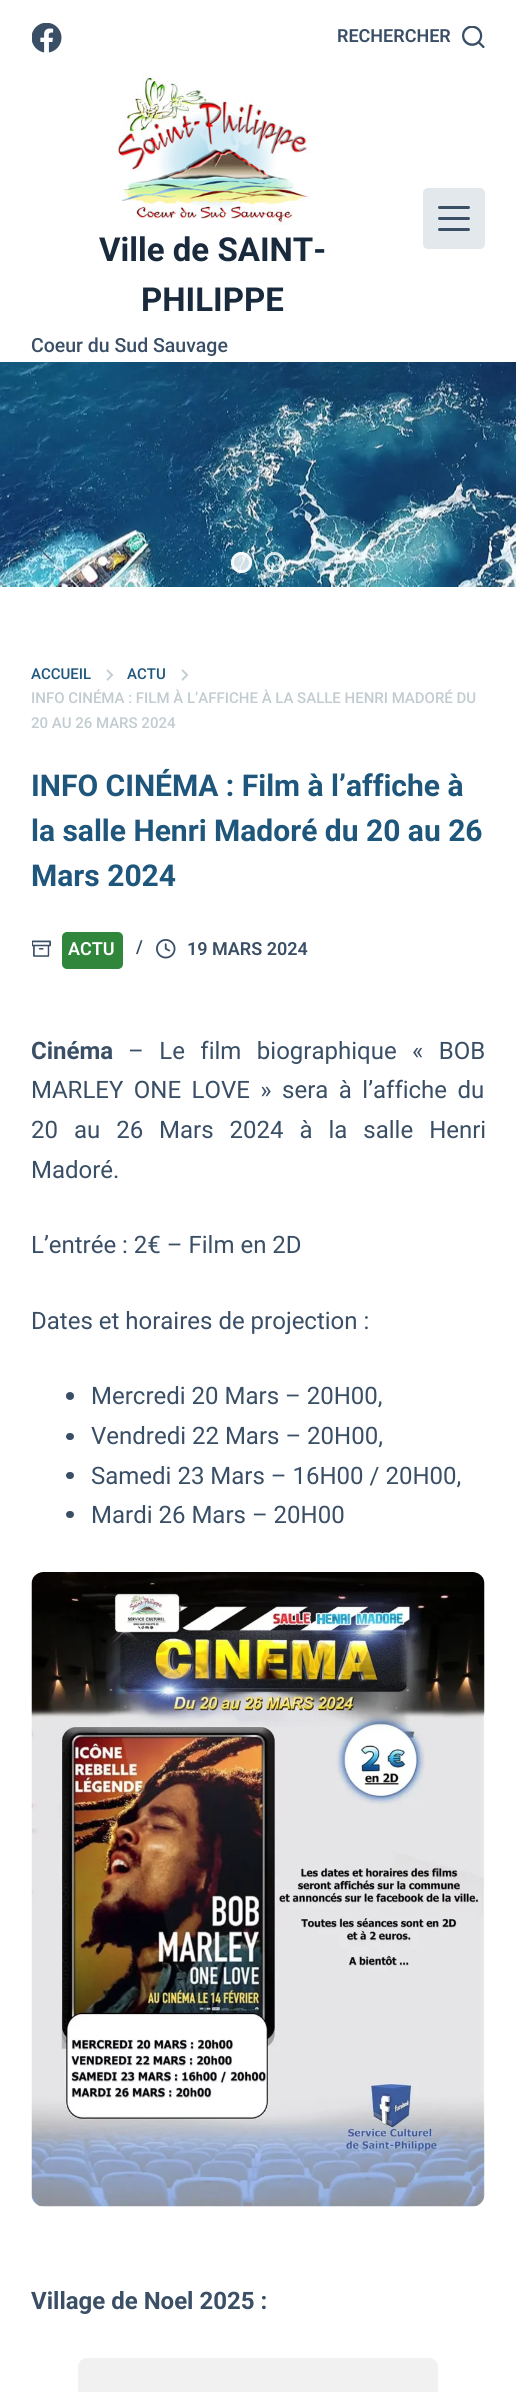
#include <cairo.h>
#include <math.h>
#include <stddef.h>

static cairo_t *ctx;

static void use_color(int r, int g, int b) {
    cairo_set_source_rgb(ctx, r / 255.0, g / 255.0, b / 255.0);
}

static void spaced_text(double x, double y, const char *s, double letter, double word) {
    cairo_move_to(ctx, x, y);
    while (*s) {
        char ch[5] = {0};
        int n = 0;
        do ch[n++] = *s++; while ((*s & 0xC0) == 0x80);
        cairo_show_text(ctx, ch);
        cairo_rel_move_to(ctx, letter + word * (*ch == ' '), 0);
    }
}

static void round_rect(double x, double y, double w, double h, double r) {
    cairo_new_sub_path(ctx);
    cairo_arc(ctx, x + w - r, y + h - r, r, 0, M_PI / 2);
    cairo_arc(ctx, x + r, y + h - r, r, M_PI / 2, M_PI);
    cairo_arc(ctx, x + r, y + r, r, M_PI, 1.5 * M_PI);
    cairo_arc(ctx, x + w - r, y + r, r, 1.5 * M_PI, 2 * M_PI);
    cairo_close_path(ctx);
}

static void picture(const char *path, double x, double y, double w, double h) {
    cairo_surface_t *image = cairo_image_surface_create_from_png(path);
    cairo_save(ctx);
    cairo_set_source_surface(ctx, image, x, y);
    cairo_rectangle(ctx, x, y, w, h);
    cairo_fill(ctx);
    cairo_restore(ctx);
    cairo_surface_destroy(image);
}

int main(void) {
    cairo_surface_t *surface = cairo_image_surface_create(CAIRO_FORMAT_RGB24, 516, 2392);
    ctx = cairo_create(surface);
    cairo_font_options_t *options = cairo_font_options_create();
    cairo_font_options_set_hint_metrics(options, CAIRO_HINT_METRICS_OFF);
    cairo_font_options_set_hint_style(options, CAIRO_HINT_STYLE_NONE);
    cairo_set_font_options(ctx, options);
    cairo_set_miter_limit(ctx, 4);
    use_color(255, 255, 255);
    cairo_paint(ctx);
    picture("img1.png", 32, 23, 30, 30);
    cairo_select_font_face(ctx, "Roboto SemiBold", CAIRO_FONT_SLANT_NORMAL, CAIRO_FONT_WEIGHT_NORMAL);
    cairo_set_font_size(ctx, 18);
    use_color(58, 79, 102);
    cairo_move_to(ctx, 337, 42);
    cairo_show_text(ctx, "RECHERCHER");
    picture("img2.png", 462, 26, 23, 22);
    use_color(227, 232, 237);
    round_rect(423, 188, 62, 61, 5);
    cairo_fill(ctx);
    use_color(58, 79, 102);
    round_rect(438, 206, 32, 3, 1.5);
    cairo_fill(ctx);
    round_rect(438, 217, 32, 3, 1.5);
    cairo_fill(ctx);
    round_rect(438, 228, 32, 3, 1.5);
    cairo_fill(ctx);
    picture("img3.png", 118, 75, 193, 150);
    cairo_select_font_face(ctx, "Roboto", CAIRO_FONT_SLANT_NORMAL, CAIRO_FONT_WEIGHT_BOLD);
    cairo_set_font_size(ctx, 33);
    use_color(25, 42, 61);
    cairo_move_to(ctx, 99, 261);
    cairo_show_text(ctx, "Ville de SAINT-");
    cairo_move_to(ctx, 141, 311);
    cairo_show_text(ctx, "PHILIPPE");
    cairo_select_font_face(ctx, "Roboto Medium", CAIRO_FONT_SLANT_NORMAL, CAIRO_FONT_WEIGHT_NORMAL);
    cairo_set_font_size(ctx, 19.5);
    use_color(58, 79, 102);
    cairo_move_to(ctx, 31, 352);
    cairo_show_text(ctx, "Coeur du Sud Sauvage");
    picture("img4.png", 0, 362, 516, 225);
    cairo_set_source_rgba(ctx, 1, 1, 1, 0.8);
    cairo_arc(ctx, 241.5, 562.5, 10.5, 0, 2 * M_PI);
    cairo_fill(ctx);
    cairo_arc(ctx, 241.5, 562.5, 9, 0, 2 * M_PI);
    cairo_set_line_width(ctx, 3);
    cairo_stroke(ctx);
    cairo_arc(ctx, 274.5, 562.5, 9, 0, 2 * M_PI);
    cairo_stroke(ctx);
    cairo_set_font_size(ctx, 15);
    use_color(30, 86, 124);
    cairo_move_to(ctx, 31, 679);
    cairo_show_text(ctx, "ACCUEIL");
    picture("img5.png", 106, 669, 8, 12);
    cairo_move_to(ctx, 127, 679);
    cairo_show_text(ctx, "ACTU");
    picture("img5.png", 181, 669, 8, 12);
    use_color(194, 204, 208);
    cairo_move_to(ctx, 31, 703);
    cairo_show_text(ctx, "INFO CINÉMA : FILM À L’AFFICHE À LA SALLE HENRI MADORÉ DU");
    cairo_move_to(ctx, 31, 728);
    cairo_show_text(ctx, "20 AU 26 MARS 2024");
    cairo_select_font_face(ctx, "Roboto", CAIRO_FONT_SLANT_NORMAL, CAIRO_FONT_WEIGHT_BOLD);
    cairo_set_font_size(ctx, 30);
    use_color(30, 86, 124);
    cairo_move_to(ctx, 31, 796);
    cairo_show_text(ctx, "INFO CINÉMA : Film à l’affiche à");
    cairo_move_to(ctx, 31, 841);
    cairo_show_text(ctx, "la salle Henri Madoré du 20 au 26");
    cairo_move_to(ctx, 31, 886);
    cairo_show_text(ctx, "Mars 2024");
    picture("img6.png", 32, 940, 19, 17);
    use_color(48, 135, 59);
    round_rect(62, 932, 61, 37, 5);
    cairo_fill(ctx);
    cairo_select_font_face(ctx, "Roboto SemiBold", CAIRO_FONT_SLANT_NORMAL, CAIRO_FONT_WEIGHT_NORMAL);
    cairo_set_font_size(ctx, 18);
    use_color(255, 255, 255);
    cairo_move_to(ctx, 68, 955);
    cairo_show_text(ctx, "ACTU");
    use_color(58, 79, 102);
    cairo_move_to(ctx, 136, 953);
    cairo_show_text(ctx, "/");
    picture("img7.png", 156, 939, 20, 20);
    cairo_move_to(ctx, 187, 955);
    cairo_show_text(ctx, "19 MARS 2024");
    cairo_select_font_face(ctx, "Roboto", CAIRO_FONT_SLANT_NORMAL, CAIRO_FONT_WEIGHT_BOLD);
    cairo_set_font_size(ctx, 24);
    cairo_move_to(ctx, 31, 1059);
    cairo_show_text(ctx, "Cinéma");
    cairo_select_font_face(ctx, "Roboto", CAIRO_FONT_SLANT_NORMAL, CAIRO_FONT_WEIGHT_NORMAL);
    spaced_text(128, 1059, "– Le film biographique « BOB", 0, 9.5);
    spaced_text(31, 1098, "MARLEY ONE LOVE » sera à l’affiche du", 0, 4.5);
    spaced_text(31, 1138, "20 au 26 Mars 2024 à la salle Henri", 0, 10);
    cairo_move_to(ctx, 31, 1178);
    cairo_show_text(ctx, "Madoré.");
    cairo_move_to(ctx, 31, 1253);
    cairo_show_text(ctx, "L’entrée : 2€ – Film en 2D");
    cairo_move_to(ctx, 31, 1329);
    cairo_show_text(ctx, "Dates et horaires de projection :");
    cairo_new_path(ctx);
    cairo_arc(ctx, 70, 1396, 4, 0, 2 * M_PI);
    cairo_fill(ctx);
    cairo_move_to(ctx, 91, 1404);
    cairo_show_text(ctx, "Mercredi 20 Mars – 20H00,");
    round_rect(66, 1433, 8, 7, 3.5);
    cairo_fill(ctx);
    cairo_move_to(ctx, 91, 1444);
    cairo_show_text(ctx, "Vendredi 22 Mars – 20H00,");
    round_rect(66, 1472, 8, 7, 3.5);
    cairo_fill(ctx);
    cairo_move_to(ctx, 91, 1484);
    cairo_show_text(ctx, "Samedi 23 Mars – 16H00 / 20H00,");
    round_rect(66, 1511, 8, 7, 3.5);
    cairo_fill(ctx);
    cairo_move_to(ctx, 91, 1523);
    cairo_show_text(ctx, "Mardi 26 Mars – 20H00");
    picture("img8.png", 31, 1572, 454, 635);
    cairo_select_font_face(ctx, "Roboto", CAIRO_FONT_SLANT_NORMAL, CAIRO_FONT_WEIGHT_BOLD);
    cairo_move_to(ctx, 31, 2309);
    cairo_show_text(ctx, "Village de Noel 2025 :");
    use_color(241, 241, 241);
    round_rect(78, 2358, 360, 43, 9);
    cairo_fill(ctx);
    cairo_surface_write_to_png(surface, "result.png");
    cairo_font_options_destroy(options);
    cairo_destroy(ctx);
    cairo_surface_destroy(surface);
    return 0;
}
